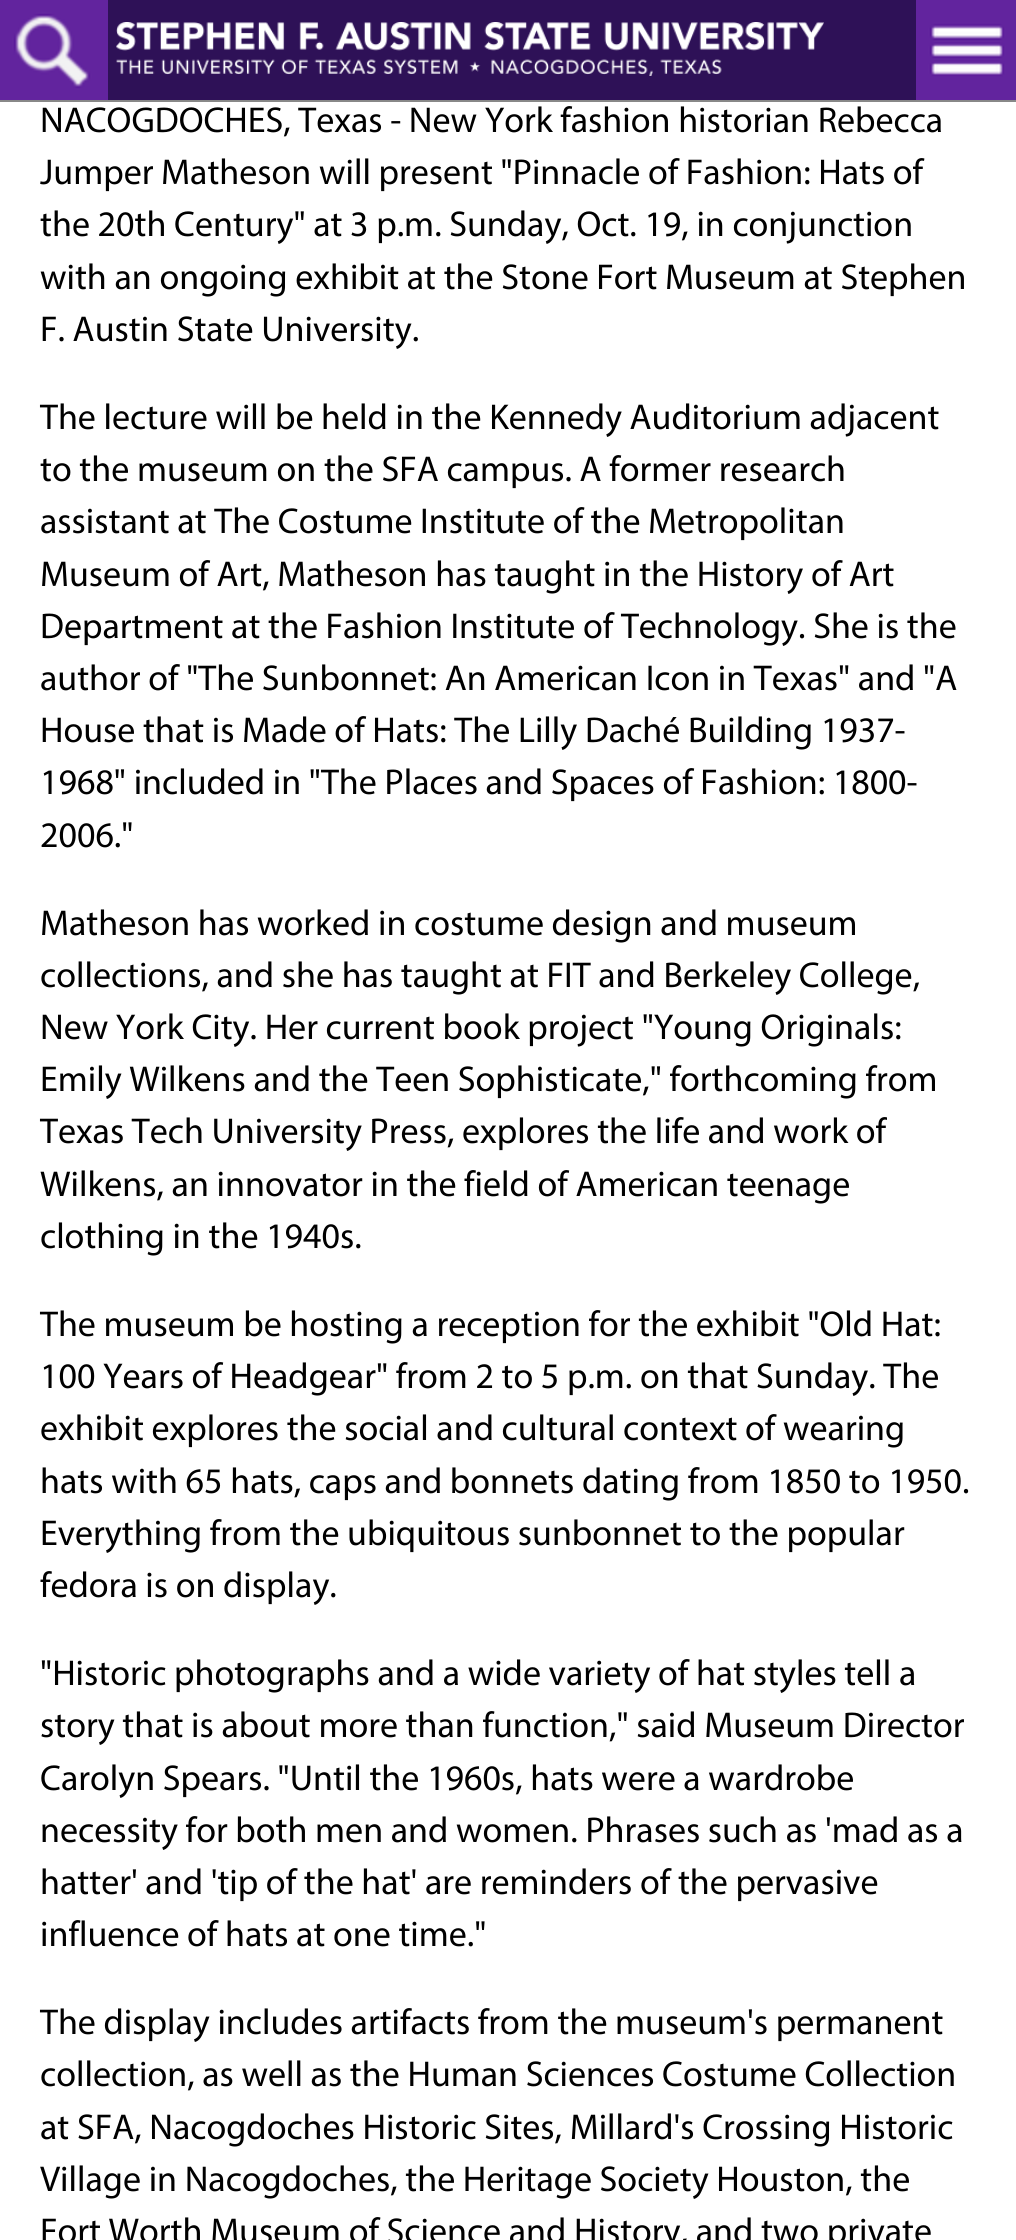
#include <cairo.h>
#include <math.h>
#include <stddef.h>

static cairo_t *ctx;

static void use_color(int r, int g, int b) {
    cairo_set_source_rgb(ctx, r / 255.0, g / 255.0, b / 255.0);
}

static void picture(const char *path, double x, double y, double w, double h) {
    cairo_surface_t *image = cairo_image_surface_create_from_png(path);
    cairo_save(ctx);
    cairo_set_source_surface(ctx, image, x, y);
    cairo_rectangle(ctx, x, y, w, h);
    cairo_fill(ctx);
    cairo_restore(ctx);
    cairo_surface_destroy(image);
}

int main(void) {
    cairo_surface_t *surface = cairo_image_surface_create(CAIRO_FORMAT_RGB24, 1016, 2240);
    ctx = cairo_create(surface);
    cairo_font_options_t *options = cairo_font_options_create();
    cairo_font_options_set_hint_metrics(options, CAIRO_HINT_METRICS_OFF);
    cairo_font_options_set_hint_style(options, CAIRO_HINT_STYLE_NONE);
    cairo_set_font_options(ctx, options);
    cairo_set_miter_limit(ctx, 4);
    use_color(255, 255, 255);
    cairo_paint(ctx);
    use_color(136, 136, 136);
    cairo_rectangle(ctx, 0, 100, 1016, 2);
    cairo_fill(ctx);
    use_color(46, 17, 87);
    cairo_rectangle(ctx, 108, 0, 808, 100);
    cairo_fill(ctx);
    picture("img1.png", 0, 0, 108, 100);
    picture("img2.png", 116, 22, 708, 54);
    picture("img3.png", 916, 0, 100, 100);
    cairo_select_font_face(ctx, "Myriad", CAIRO_FONT_SLANT_NORMAL, CAIRO_FONT_WEIGHT_NORMAL);
    cairo_set_font_size(ctx, 36);
    use_color(0, 0, 0);
    cairo_move_to(ctx, 40, 132);
    cairo_show_text(ctx, "NACOGDOCHES, Texas - New York fashion historian Rebecca");
    cairo_move_to(ctx, 40, 184);
    cairo_show_text(ctx, "Jumper Matheson will present \"Pinnacle of Fashion: Hats of");
    cairo_move_to(ctx, 40, 236);
    cairo_show_text(ctx, "the 20th Century\" at 3 p.m. Sunday, Oct. 19, in conjunction");
    cairo_move_to(ctx, 40, 289);
    cairo_show_text(ctx, "with an ongoing exhibit at the Stone Fort Museum at Stephen");
    cairo_move_to(ctx, 40, 341);
    cairo_show_text(ctx, "F. Austin State University.");
    cairo_move_to(ctx, 40, 429);
    cairo_show_text(ctx, "The lecture will be held in the Kennedy Auditorium adjacent");
    cairo_move_to(ctx, 40, 481);
    cairo_show_text(ctx, "to the museum on the SFA campus. A former research");
    cairo_move_to(ctx, 40, 533);
    cairo_show_text(ctx, "assistant at The Costume Institute of the Metropolitan");
    cairo_move_to(ctx, 40, 586);
    cairo_show_text(ctx, "Museum of Art, Matheson has taught in the History of Art");
    cairo_move_to(ctx, 40, 638);
    cairo_show_text(ctx, "Department at the Fashion Institute of Technology. She is the");
    cairo_move_to(ctx, 40, 690);
    cairo_show_text(ctx, "author of \"The Sunbonnet: An American Icon in Texas\" and \"A");
    cairo_move_to(ctx, 40, 742);
    cairo_show_text(ctx, "House that is Made of Hats: The Lilly Daché Building 1937-");
    cairo_move_to(ctx, 40, 794);
    cairo_show_text(ctx, "1968\" included in \"The Places and Spaces of Fashion: 1800-");
    cairo_move_to(ctx, 40, 847);
    cairo_show_text(ctx, "2006.\"");
    cairo_move_to(ctx, 40, 935);
    cairo_show_text(ctx, "Matheson has worked in costume design and museum");
    cairo_move_to(ctx, 40, 987);
    cairo_show_text(ctx, "collections, and she has taught at FIT and Berkeley College,");
    cairo_move_to(ctx, 40, 1039);
    cairo_show_text(ctx, "New York City. Her current book project \"Young Originals:");
    cairo_move_to(ctx, 40, 1091);
    cairo_show_text(ctx, "Emily Wilkens and the Teen Sophisticate,\" forthcoming from");
    cairo_move_to(ctx, 40, 1143);
    cairo_show_text(ctx, "Texas Tech University Press, explores the life and work of");
    cairo_move_to(ctx, 40, 1196);
    cairo_show_text(ctx, "Wilkens, an innovator in the field of American teenage");
    cairo_move_to(ctx, 40, 1248);
    cairo_show_text(ctx, "clothing in the 1940s.");
    cairo_move_to(ctx, 40, 1336);
    cairo_show_text(ctx, "The museum be hosting a reception for the exhibit \"Old Hat:");
    cairo_move_to(ctx, 40, 1388);
    cairo_show_text(ctx, "100 Years of Headgear\" from 2 to 5 p.m. on that Sunday. The");
    cairo_move_to(ctx, 40, 1440);
    cairo_show_text(ctx, "exhibit explores the social and cultural context of wearing");
    cairo_move_to(ctx, 40, 1493);
    cairo_show_text(ctx, "hats with 65 hats, caps and bonnets dating from 1850 to 1950.");
    cairo_move_to(ctx, 40, 1545);
    cairo_show_text(ctx, "Everything from the ubiquitous sunbonnet to the popular");
    cairo_move_to(ctx, 40, 1597);
    cairo_show_text(ctx, "fedora is on display.");
    cairo_move_to(ctx, 40, 1685);
    cairo_show_text(ctx, "\"Historic photographs and a wide variety of hat styles tell a");
    cairo_move_to(ctx, 40, 1737);
    cairo_show_text(ctx, "story that is about more than function,\" said Museum Director");
    cairo_move_to(ctx, 40, 1790);
    cairo_show_text(ctx, "Carolyn Spears. \"Until the 1960s, hats were a wardrobe");
    cairo_move_to(ctx, 40, 1842);
    cairo_show_text(ctx, "necessity for both men and women. Phrases such as 'mad as a");
    cairo_move_to(ctx, 40, 1894);
    cairo_show_text(ctx, "hatter' and 'tip of the hat' are reminders of the pervasive");
    cairo_move_to(ctx, 40, 1946);
    cairo_show_text(ctx, "influence of hats at one time.\"");
    cairo_move_to(ctx, 40, 2034);
    cairo_show_text(ctx, "The display includes artifacts from the museum's permanent");
    cairo_move_to(ctx, 40, 2086);
    cairo_show_text(ctx, "collection, as well as the Human Sciences Costume Collection");
    cairo_move_to(ctx, 40, 2139);
    cairo_show_text(ctx, "at SFA, Nacogdoches Historic Sites, Millard's Crossing Historic");
    cairo_move_to(ctx, 40, 2191);
    cairo_show_text(ctx, "Village in Nacogdoches, the Heritage Society Houston, the");
    cairo_move_to(ctx, 40, 2243);
    cairo_show_text(ctx, "Fort Worth Museum of Science and History, and two private");
    cairo_surface_write_to_png(surface, "result.png");
    cairo_font_options_destroy(options);
    cairo_destroy(ctx);
    cairo_surface_destroy(surface);
    return 0;
}
